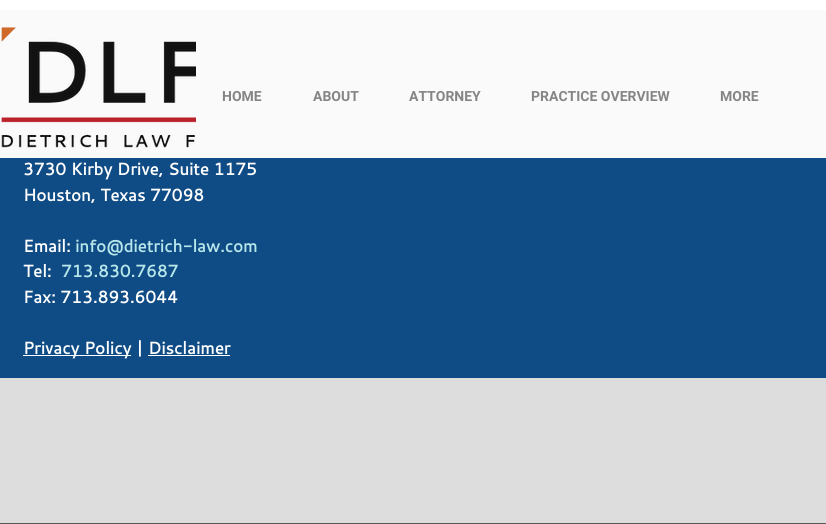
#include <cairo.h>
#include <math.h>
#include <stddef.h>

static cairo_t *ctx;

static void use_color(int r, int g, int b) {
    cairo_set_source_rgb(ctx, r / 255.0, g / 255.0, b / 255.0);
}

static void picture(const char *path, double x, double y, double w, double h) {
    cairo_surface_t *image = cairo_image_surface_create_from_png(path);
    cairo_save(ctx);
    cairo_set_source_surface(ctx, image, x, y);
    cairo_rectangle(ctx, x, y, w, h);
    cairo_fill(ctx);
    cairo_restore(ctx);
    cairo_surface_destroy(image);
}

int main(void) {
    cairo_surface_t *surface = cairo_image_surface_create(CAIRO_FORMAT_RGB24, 826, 524);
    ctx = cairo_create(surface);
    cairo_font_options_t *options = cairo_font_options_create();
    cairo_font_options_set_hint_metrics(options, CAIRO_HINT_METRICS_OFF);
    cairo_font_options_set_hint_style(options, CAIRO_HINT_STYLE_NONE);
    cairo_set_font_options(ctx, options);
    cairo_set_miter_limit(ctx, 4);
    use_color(221, 221, 221);
    cairo_paint(ctx);
    use_color(255, 255, 255);
    cairo_rectangle(ctx, 0, 0, 826, 10);
    cairo_fill(ctx);
    use_color(250, 250, 250);
    cairo_rectangle(ctx, 0, 10, 826, 148);
    cairo_fill(ctx);
    picture("img1.png", 1, 27, 195, 121);
    cairo_select_font_face(ctx, "Roboto", CAIRO_FONT_SLANT_NORMAL, CAIRO_FONT_WEIGHT_BOLD);
    cairo_set_font_size(ctx, 14);
    use_color(133, 133, 133);
    cairo_move_to(ctx, 222, 101);
    cairo_show_text(ctx, "HOME");
    cairo_move_to(ctx, 313, 101);
    cairo_show_text(ctx, "ABOUT");
    cairo_move_to(ctx, 409, 101);
    cairo_show_text(ctx, "ATTORNEY");
    cairo_move_to(ctx, 531, 101);
    cairo_show_text(ctx, "PRACTICE OVERVIEW");
    cairo_move_to(ctx, 720, 101);
    cairo_show_text(ctx, "MORE");
    use_color(15, 76, 133);
    cairo_rectangle(ctx, 0, 158, 826, 220);
    cairo_fill(ctx);
    cairo_select_font_face(ctx, "Cantarell", CAIRO_FONT_SLANT_NORMAL, CAIRO_FONT_WEIGHT_BOLD);
    cairo_set_font_size(ctx, 17);
    use_color(255, 255, 255);
    cairo_move_to(ctx, 23, 175);
    cairo_show_text(ctx, "3730 Kirby Drive, Suite 1175");
    cairo_move_to(ctx, 23, 201);
    cairo_show_text(ctx, "Houston, Texas 77098");
    cairo_move_to(ctx, 23, 252);
    cairo_show_text(ctx, "Email:");
    use_color(183, 230, 235);
    cairo_move_to(ctx, 75, 252);
    cairo_show_text(ctx, "info@dietrich-law.com");
    use_color(255, 255, 255);
    cairo_move_to(ctx, 23, 277);
    cairo_show_text(ctx, "Tel:");
    use_color(183, 230, 235);
    cairo_move_to(ctx, 61, 277);
    cairo_show_text(ctx, "713.830.7687");
    use_color(255, 255, 255);
    cairo_move_to(ctx, 23, 303);
    cairo_show_text(ctx, "Fax: 713.893.6044");
    cairo_rectangle(ctx, 23, 355, 108, 1);
    cairo_fill(ctx);
    cairo_move_to(ctx, 23, 354);
    cairo_show_text(ctx, "Privacy Policy | Disclaimer");
    cairo_rectangle(ctx, 148, 355, 82, 1);
    cairo_fill(ctx);
    use_color(88, 88, 88);
    cairo_rectangle(ctx, 0, 523, 826, 1);
    cairo_fill(ctx);
    cairo_surface_write_to_png(surface, "result.png");
    cairo_font_options_destroy(options);
    cairo_destroy(ctx);
    cairo_surface_destroy(surface);
    return 0;
}
